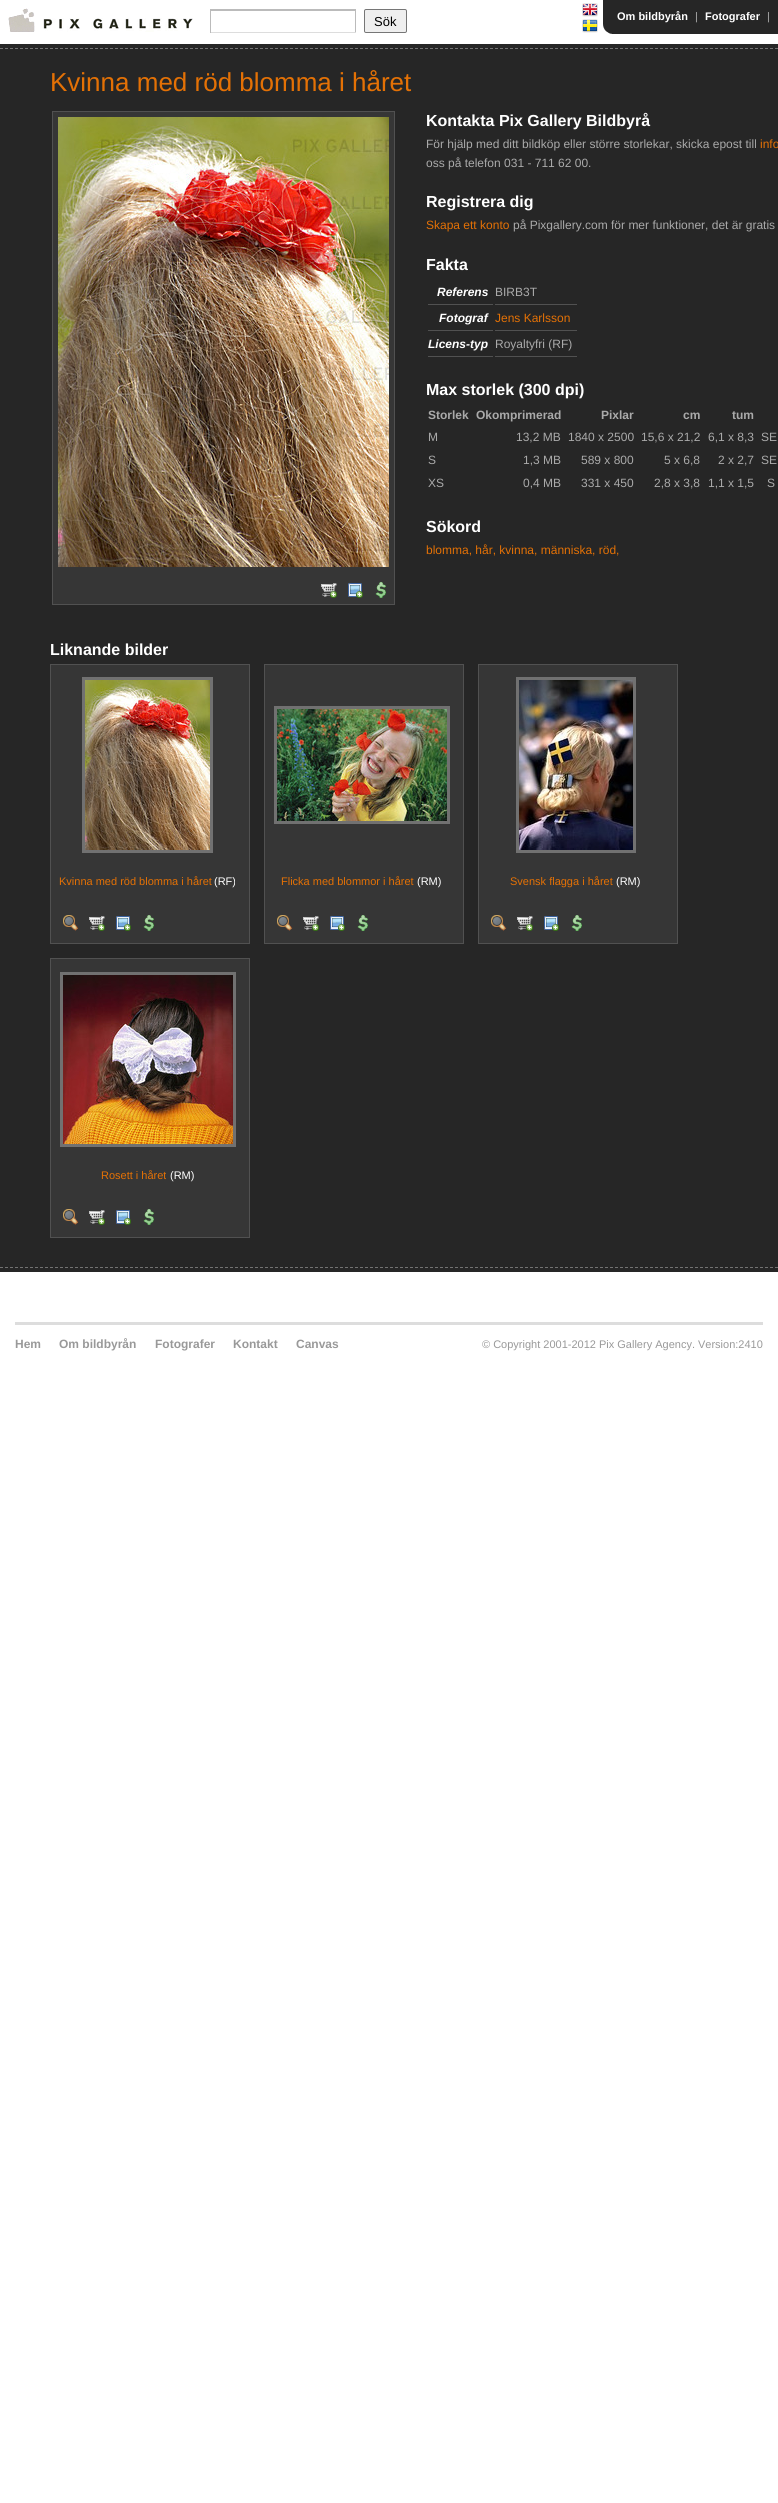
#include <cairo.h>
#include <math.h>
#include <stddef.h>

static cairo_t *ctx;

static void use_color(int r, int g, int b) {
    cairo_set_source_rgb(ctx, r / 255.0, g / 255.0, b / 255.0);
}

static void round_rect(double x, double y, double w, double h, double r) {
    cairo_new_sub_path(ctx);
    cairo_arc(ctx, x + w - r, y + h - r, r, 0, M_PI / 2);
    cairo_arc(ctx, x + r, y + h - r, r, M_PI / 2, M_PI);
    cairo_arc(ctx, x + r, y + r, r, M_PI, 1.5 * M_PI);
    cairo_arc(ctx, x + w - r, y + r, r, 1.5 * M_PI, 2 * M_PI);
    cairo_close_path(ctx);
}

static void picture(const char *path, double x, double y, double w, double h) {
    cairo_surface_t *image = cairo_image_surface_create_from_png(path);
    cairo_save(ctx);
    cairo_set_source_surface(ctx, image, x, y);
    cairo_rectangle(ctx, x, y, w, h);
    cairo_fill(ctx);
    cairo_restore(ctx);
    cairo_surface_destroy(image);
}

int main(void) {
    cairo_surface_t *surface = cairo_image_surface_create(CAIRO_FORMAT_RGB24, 778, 2503);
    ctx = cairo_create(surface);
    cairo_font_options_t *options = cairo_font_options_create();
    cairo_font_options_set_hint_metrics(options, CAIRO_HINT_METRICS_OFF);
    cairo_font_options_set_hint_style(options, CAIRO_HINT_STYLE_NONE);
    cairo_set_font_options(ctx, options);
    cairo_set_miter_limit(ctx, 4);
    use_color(255, 255, 255);
    cairo_paint(ctx);
    picture("img1.png", 8, 8, 185, 24);
    use_color(187, 187, 187);
    cairo_rectangle(ctx, 210, 9, 146, 2);
    cairo_fill(ctx);
    cairo_rectangle(ctx, 355, 9, 1, 24);
    cairo_fill(ctx);
    use_color(221, 221, 221);
    cairo_rectangle(ctx, 210, 32, 146, 1);
    cairo_fill(ctx);
    use_color(187, 187, 187);
    cairo_rectangle(ctx, 210, 9, 1, 24);
    cairo_fill(ctx);
    use_color(239, 239, 239);
    round_rect(364.5, 9.5, 42, 23, 1.5);
    cairo_fill_preserve(ctx);
    use_color(118, 118, 118);
    cairo_set_line_width(ctx, 1);
    cairo_stroke(ctx);
    cairo_select_font_face(ctx, "Liberation Sans", CAIRO_FONT_SLANT_NORMAL, CAIRO_FONT_WEIGHT_NORMAL);
    cairo_set_font_size(ctx, 13);
    use_color(0, 0, 0);
    cairo_move_to(ctx, 374, 26);
    cairo_show_text(ctx, "Sök");
    picture("img2.png", 582, 3, 16, 14);
    picture("img3.png", 582, 19, 16, 14);
    use_color(38, 38, 38);
    cairo_rectangle(ctx, 603, 0, 175, 34);
    cairo_fill(ctx);
    picture("img4.png", 603, 24, 9, 10);
    cairo_select_font_face(ctx, "Liberation Sans", CAIRO_FONT_SLANT_NORMAL, CAIRO_FONT_WEIGHT_BOLD);
    cairo_set_font_size(ctx, 11);
    use_color(255, 255, 255);
    cairo_move_to(ctx, 617, 20);
    cairo_show_text(ctx, "Om bildbyrån");
    cairo_select_font_face(ctx, "Liberation Sans", CAIRO_FONT_SLANT_NORMAL, CAIRO_FONT_WEIGHT_NORMAL);
    use_color(170, 170, 170);
    cairo_move_to(ctx, 695, 20);
    cairo_show_text(ctx, "|");
    cairo_select_font_face(ctx, "Liberation Sans", CAIRO_FONT_SLANT_NORMAL, CAIRO_FONT_WEIGHT_BOLD);
    use_color(255, 255, 255);
    cairo_move_to(ctx, 705, 20);
    cairo_show_text(ctx, "Fotografer");
    cairo_select_font_face(ctx, "Liberation Sans", CAIRO_FONT_SLANT_NORMAL, CAIRO_FONT_WEIGHT_NORMAL);
    use_color(170, 170, 170);
    cairo_move_to(ctx, 767, 20);
    cairo_show_text(ctx, "|");
    use_color(38, 38, 38);
    cairo_rectangle(ctx, 0, 44, 778, 1228);
    cairo_fill(ctx);
    picture("img5.png", 0, 48, 778, 1);
    picture("img5.png", 0, 1267, 778, 1);
    cairo_set_font_size(ctx, 26);
    use_color(228, 113, 5);
    cairo_move_to(ctx, 50, 91);
    cairo_show_text(ctx, "Kvinna med röd blomma i håret");
    use_color(54, 54, 54);
    cairo_rectangle(ctx, 52.5, 111.5, 342, 493);
    cairo_fill_preserve(ctx);
    use_color(81, 81, 81);
    cairo_stroke(ctx);
    picture("img6.png", 58, 117, 331, 450);
    picture("img7.png", 321, 583, 16, 15);
    picture("img8.png", 348, 583, 15, 15);
    picture("img9.png", 375, 582, 11, 16);
    cairo_select_font_face(ctx, "Liberation Sans", CAIRO_FONT_SLANT_NORMAL, CAIRO_FONT_WEIGHT_BOLD);
    cairo_set_font_size(ctx, 16);
    use_color(255, 255, 255);
    cairo_move_to(ctx, 426, 126);
    cairo_show_text(ctx, "Kontakta Pix Gallery Bildbyrå");
    cairo_select_font_face(ctx, "Liberation Sans", CAIRO_FONT_SLANT_NORMAL, CAIRO_FONT_WEIGHT_NORMAL);
    cairo_set_font_size(ctx, 12);
    use_color(170, 170, 170);
    cairo_move_to(ctx, 426, 148);
    cairo_show_text(ctx, "För hjälp med ditt bildköp eller större storlekar, skicka epost till");
    use_color(228, 113, 5);
    cairo_move_to(ctx, 760, 148);
    cairo_show_text(ctx, "info");
    use_color(170, 170, 170);
    cairo_move_to(ctx, 426, 167);
    cairo_show_text(ctx, "oss på telefon 031 - 711 62 00.");
    cairo_select_font_face(ctx, "Liberation Sans", CAIRO_FONT_SLANT_NORMAL, CAIRO_FONT_WEIGHT_BOLD);
    cairo_set_font_size(ctx, 16);
    use_color(255, 255, 255);
    cairo_move_to(ctx, 426, 207);
    cairo_show_text(ctx, "Registrera dig");
    cairo_select_font_face(ctx, "Liberation Sans", CAIRO_FONT_SLANT_NORMAL, CAIRO_FONT_WEIGHT_NORMAL);
    cairo_set_font_size(ctx, 12);
    use_color(228, 113, 5);
    cairo_move_to(ctx, 426, 229);
    cairo_show_text(ctx, "Skapa ett konto");
    use_color(170, 170, 170);
    cairo_move_to(ctx, 513, 229);
    cairo_show_text(ctx, "på Pixgallery.com för mer funktioner, det är gratis");
    cairo_select_font_face(ctx, "Liberation Sans", CAIRO_FONT_SLANT_NORMAL, CAIRO_FONT_WEIGHT_BOLD);
    cairo_set_font_size(ctx, 16);
    use_color(255, 255, 255);
    cairo_move_to(ctx, 426, 270);
    cairo_show_text(ctx, "Fakta");
    use_color(81, 81, 81);
    cairo_rectangle(ctx, 428, 304, 65, 1);
    cairo_fill(ctx);
    cairo_select_font_face(ctx, "Liberation Sans", CAIRO_FONT_SLANT_ITALIC, CAIRO_FONT_WEIGHT_BOLD);
    cairo_set_font_size(ctx, 12);
    use_color(255, 255, 255);
    cairo_move_to(ctx, 437, 296);
    cairo_show_text(ctx, "Referens");
    use_color(81, 81, 81);
    cairo_rectangle(ctx, 495, 304, 82, 1);
    cairo_fill(ctx);
    cairo_select_font_face(ctx, "Liberation Sans", CAIRO_FONT_SLANT_NORMAL, CAIRO_FONT_WEIGHT_NORMAL);
    use_color(170, 170, 170);
    cairo_move_to(ctx, 495, 296);
    cairo_show_text(ctx, "BIRB3T");
    use_color(81, 81, 81);
    cairo_rectangle(ctx, 428, 330, 65, 1);
    cairo_fill(ctx);
    cairo_select_font_face(ctx, "Liberation Sans", CAIRO_FONT_SLANT_ITALIC, CAIRO_FONT_WEIGHT_BOLD);
    use_color(255, 255, 255);
    cairo_move_to(ctx, 439, 322);
    cairo_show_text(ctx, "Fotograf");
    use_color(81, 81, 81);
    cairo_rectangle(ctx, 495, 330, 82, 1);
    cairo_fill(ctx);
    cairo_select_font_face(ctx, "Liberation Sans", CAIRO_FONT_SLANT_NORMAL, CAIRO_FONT_WEIGHT_NORMAL);
    use_color(228, 113, 5);
    cairo_move_to(ctx, 495, 322);
    cairo_show_text(ctx, "Jens Karlsson");
    use_color(81, 81, 81);
    cairo_rectangle(ctx, 428, 356, 65, 1);
    cairo_fill(ctx);
    cairo_select_font_face(ctx, "Liberation Sans", CAIRO_FONT_SLANT_ITALIC, CAIRO_FONT_WEIGHT_BOLD);
    use_color(255, 255, 255);
    cairo_move_to(ctx, 428, 348);
    cairo_show_text(ctx, "Licens-typ");
    use_color(81, 81, 81);
    cairo_rectangle(ctx, 495, 356, 82, 1);
    cairo_fill(ctx);
    cairo_select_font_face(ctx, "Liberation Sans", CAIRO_FONT_SLANT_NORMAL, CAIRO_FONT_WEIGHT_NORMAL);
    use_color(170, 170, 170);
    cairo_move_to(ctx, 495, 348);
    cairo_show_text(ctx, "Royaltyfri (RF)");
    cairo_select_font_face(ctx, "Liberation Sans", CAIRO_FONT_SLANT_NORMAL, CAIRO_FONT_WEIGHT_BOLD);
    cairo_set_font_size(ctx, 16);
    use_color(255, 255, 255);
    cairo_move_to(ctx, 426, 395);
    cairo_show_text(ctx, "Max storlek (300 dpi)");
    cairo_set_font_size(ctx, 12);
    use_color(170, 170, 170);
    cairo_move_to(ctx, 428, 419);
    cairo_show_text(ctx, "Storlek");
    cairo_move_to(ctx, 476, 419);
    cairo_show_text(ctx, "Okomprimerad");
    cairo_move_to(ctx, 601, 419);
    cairo_show_text(ctx, "Pixlar");
    cairo_move_to(ctx, 683, 419);
    cairo_show_text(ctx, "cm");
    cairo_move_to(ctx, 732, 419);
    cairo_show_text(ctx, "tum");
    cairo_select_font_face(ctx, "Liberation Sans", CAIRO_FONT_SLANT_NORMAL, CAIRO_FONT_WEIGHT_NORMAL);
    cairo_move_to(ctx, 428, 441);
    cairo_show_text(ctx, "M");
    cairo_move_to(ctx, 516, 441);
    cairo_show_text(ctx, "13,2 MB");
    cairo_move_to(ctx, 568, 441);
    cairo_show_text(ctx, "1840 x 2500");
    cairo_move_to(ctx, 641, 441);
    cairo_show_text(ctx, "15,6 x 21,2");
    cairo_move_to(ctx, 708, 441);
    cairo_show_text(ctx, "6,1 x 8,3");
    cairo_move_to(ctx, 761, 441);
    cairo_show_text(ctx, "SE");
    cairo_move_to(ctx, 428, 464);
    cairo_show_text(ctx, "S");
    cairo_move_to(ctx, 523, 464);
    cairo_show_text(ctx, "1,3 MB");
    cairo_move_to(ctx, 581, 464);
    cairo_show_text(ctx, "589 x 800");
    cairo_move_to(ctx, 664, 464);
    cairo_show_text(ctx, "5 x 6,8");
    cairo_move_to(ctx, 718, 464);
    cairo_show_text(ctx, "2 x 2,7");
    cairo_move_to(ctx, 761, 464);
    cairo_show_text(ctx, "SE");
    cairo_move_to(ctx, 428, 487);
    cairo_show_text(ctx, "XS");
    cairo_move_to(ctx, 523, 487);
    cairo_show_text(ctx, "0,4 MB");
    cairo_move_to(ctx, 581, 487);
    cairo_show_text(ctx, "331 x 450");
    cairo_move_to(ctx, 654, 487);
    cairo_show_text(ctx, "2,8 x 3,8");
    cairo_move_to(ctx, 708, 487);
    cairo_show_text(ctx, "1,1 x 1,5");
    cairo_move_to(ctx, 767, 487);
    cairo_show_text(ctx, "S");
    cairo_select_font_face(ctx, "Liberation Sans", CAIRO_FONT_SLANT_NORMAL, CAIRO_FONT_WEIGHT_BOLD);
    cairo_set_font_size(ctx, 16);
    use_color(255, 255, 255);
    cairo_move_to(ctx, 426, 532);
    cairo_show_text(ctx, "Sökord");
    cairo_select_font_face(ctx, "Liberation Sans", CAIRO_FONT_SLANT_NORMAL, CAIRO_FONT_WEIGHT_NORMAL);
    cairo_set_font_size(ctx, 12);
    use_color(228, 113, 5);
    cairo_move_to(ctx, 426, 554);
    cairo_show_text(ctx, "blomma, hår, kvinna, människa, röd,");
    cairo_select_font_face(ctx, "Liberation Sans", CAIRO_FONT_SLANT_NORMAL, CAIRO_FONT_WEIGHT_BOLD);
    cairo_set_font_size(ctx, 16);
    use_color(255, 255, 255);
    cairo_move_to(ctx, 50, 655);
    cairo_show_text(ctx, "Liknande bilder");
    use_color(54, 54, 54);
    cairo_rectangle(ctx, 50.5, 664.5, 199, 279);
    cairo_fill_preserve(ctx);
    use_color(81, 81, 81);
    cairo_stroke(ctx);
    cairo_rectangle(ctx, 83.5, 678.5, 128, 173);
    use_color(113, 113, 113);
    cairo_set_line_width(ctx, 3);
    cairo_stroke(ctx);
    picture("img10.png", 85, 680, 125, 170);
    cairo_select_font_face(ctx, "Liberation Sans", CAIRO_FONT_SLANT_NORMAL, CAIRO_FONT_WEIGHT_NORMAL);
    cairo_set_font_size(ctx, 11);
    use_color(228, 113, 5);
    cairo_move_to(ctx, 59, 885);
    cairo_show_text(ctx, "Kvinna med röd blomma i håret");
    use_color(255, 255, 255);
    cairo_move_to(ctx, 214, 885);
    cairo_show_text(ctx, "(RF)");
    picture("img11.png", 63, 915, 16, 16);
    picture("img7.png", 89, 916, 16, 15);
    picture("img8.png", 116, 916, 15, 15);
    picture("img9.png", 143, 915, 11, 16);
    use_color(54, 54, 54);
    cairo_rectangle(ctx, 264.5, 664.5, 199, 279);
    cairo_fill_preserve(ctx);
    use_color(81, 81, 81);
    cairo_set_line_width(ctx, 1);
    cairo_stroke(ctx);
    cairo_rectangle(ctx, 275.5, 707.5, 173, 115);
    use_color(113, 113, 113);
    cairo_set_line_width(ctx, 3);
    cairo_stroke(ctx);
    picture("img12.png", 277, 709, 170, 112);
    use_color(228, 113, 5);
    cairo_move_to(ctx, 281, 885);
    cairo_show_text(ctx, "Flicka med blommor i håret");
    use_color(255, 255, 255);
    cairo_move_to(ctx, 417, 885);
    cairo_show_text(ctx, "(RM)");
    picture("img11.png", 277, 915, 16, 16);
    picture("img7.png", 303, 916, 16, 15);
    picture("img8.png", 330, 916, 15, 15);
    picture("img9.png", 357, 915, 11, 16);
    use_color(54, 54, 54);
    cairo_rectangle(ctx, 478.5, 664.5, 199, 279);
    cairo_fill_preserve(ctx);
    use_color(81, 81, 81);
    cairo_set_line_width(ctx, 1);
    cairo_stroke(ctx);
    cairo_rectangle(ctx, 517.5, 678.5, 117, 173);
    use_color(113, 113, 113);
    cairo_set_line_width(ctx, 3);
    cairo_stroke(ctx);
    picture("img13.png", 519, 680, 114, 170);
    use_color(228, 113, 5);
    cairo_move_to(ctx, 510, 885);
    cairo_show_text(ctx, "Svensk flagga i håret");
    use_color(255, 255, 255);
    cairo_move_to(ctx, 616, 885);
    cairo_show_text(ctx, "(RM)");
    picture("img11.png", 491, 915, 16, 16);
    picture("img7.png", 517, 916, 16, 15);
    picture("img8.png", 544, 916, 15, 15);
    picture("img9.png", 571, 915, 11, 16);
    use_color(54, 54, 54);
    cairo_rectangle(ctx, 50.5, 958.5, 199, 279);
    cairo_fill_preserve(ctx);
    use_color(81, 81, 81);
    cairo_set_line_width(ctx, 1);
    cairo_stroke(ctx);
    cairo_rectangle(ctx, 61.5, 973.5, 173, 172);
    use_color(113, 113, 113);
    cairo_set_line_width(ctx, 3);
    cairo_stroke(ctx);
    picture("img14.png", 63, 975, 170, 169);
    use_color(228, 113, 5);
    cairo_move_to(ctx, 101, 1179);
    cairo_show_text(ctx, "Rosett i håret");
    use_color(255, 255, 255);
    cairo_move_to(ctx, 170, 1179);
    cairo_show_text(ctx, "(RM)");
    picture("img11.png", 63, 1209, 16, 16);
    picture("img7.png", 89, 1210, 16, 15);
    picture("img8.png", 116, 1210, 15, 15);
    picture("img9.png", 143, 1209, 11, 16);
    use_color(221, 221, 221);
    cairo_rectangle(ctx, 15, 1322, 748, 3);
    cairo_fill(ctx);
    cairo_select_font_face(ctx, "Liberation Sans", CAIRO_FONT_SLANT_NORMAL, CAIRO_FONT_WEIGHT_BOLD);
    cairo_set_font_size(ctx, 12);
    use_color(153, 153, 153);
    cairo_move_to(ctx, 15, 1348);
    cairo_show_text(ctx, "Hem");
    cairo_move_to(ctx, 59, 1348);
    cairo_show_text(ctx, "Om bildbyrån");
    cairo_move_to(ctx, 155, 1348);
    cairo_show_text(ctx, "Fotografer");
    cairo_move_to(ctx, 233, 1348);
    cairo_show_text(ctx, "Kontakt");
    cairo_move_to(ctx, 296, 1348);
    cairo_show_text(ctx, "Canvas");
    cairo_select_font_face(ctx, "Liberation Sans", CAIRO_FONT_SLANT_NORMAL, CAIRO_FONT_WEIGHT_NORMAL);
    cairo_set_font_size(ctx, 11);
    cairo_move_to(ctx, 482, 1348);
    cairo_show_text(ctx, "© Copyright 2001-2012 Pix Gallery Agency. Version:2410");
    cairo_surface_write_to_png(surface, "result.png");
    cairo_font_options_destroy(options);
    cairo_destroy(ctx);
    cairo_surface_destroy(surface);
    return 0;
}
